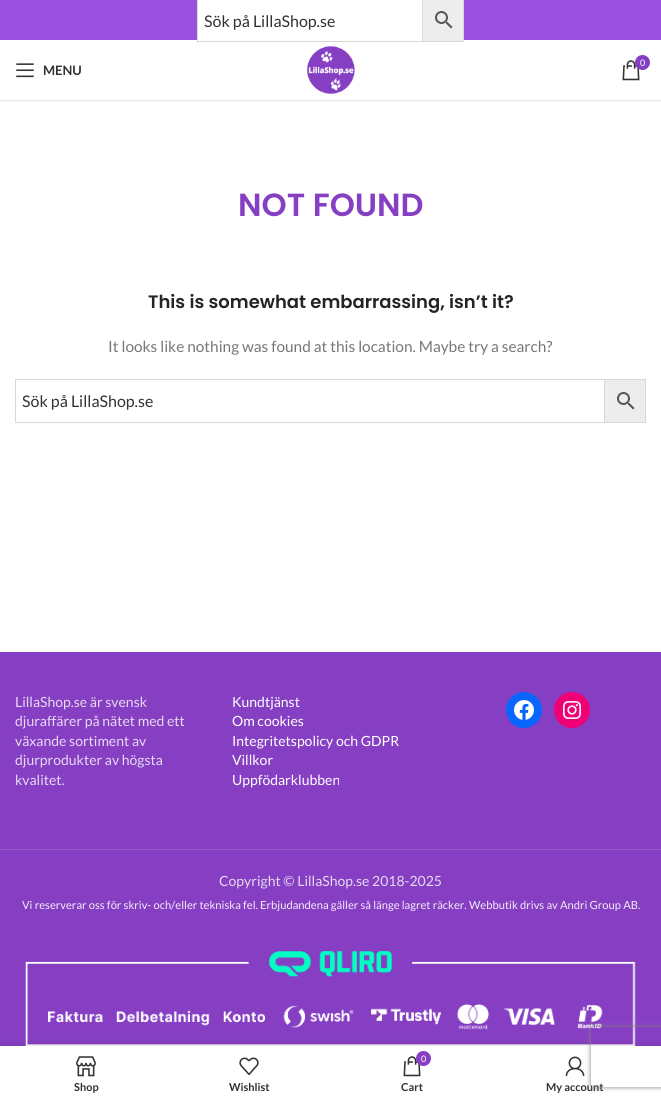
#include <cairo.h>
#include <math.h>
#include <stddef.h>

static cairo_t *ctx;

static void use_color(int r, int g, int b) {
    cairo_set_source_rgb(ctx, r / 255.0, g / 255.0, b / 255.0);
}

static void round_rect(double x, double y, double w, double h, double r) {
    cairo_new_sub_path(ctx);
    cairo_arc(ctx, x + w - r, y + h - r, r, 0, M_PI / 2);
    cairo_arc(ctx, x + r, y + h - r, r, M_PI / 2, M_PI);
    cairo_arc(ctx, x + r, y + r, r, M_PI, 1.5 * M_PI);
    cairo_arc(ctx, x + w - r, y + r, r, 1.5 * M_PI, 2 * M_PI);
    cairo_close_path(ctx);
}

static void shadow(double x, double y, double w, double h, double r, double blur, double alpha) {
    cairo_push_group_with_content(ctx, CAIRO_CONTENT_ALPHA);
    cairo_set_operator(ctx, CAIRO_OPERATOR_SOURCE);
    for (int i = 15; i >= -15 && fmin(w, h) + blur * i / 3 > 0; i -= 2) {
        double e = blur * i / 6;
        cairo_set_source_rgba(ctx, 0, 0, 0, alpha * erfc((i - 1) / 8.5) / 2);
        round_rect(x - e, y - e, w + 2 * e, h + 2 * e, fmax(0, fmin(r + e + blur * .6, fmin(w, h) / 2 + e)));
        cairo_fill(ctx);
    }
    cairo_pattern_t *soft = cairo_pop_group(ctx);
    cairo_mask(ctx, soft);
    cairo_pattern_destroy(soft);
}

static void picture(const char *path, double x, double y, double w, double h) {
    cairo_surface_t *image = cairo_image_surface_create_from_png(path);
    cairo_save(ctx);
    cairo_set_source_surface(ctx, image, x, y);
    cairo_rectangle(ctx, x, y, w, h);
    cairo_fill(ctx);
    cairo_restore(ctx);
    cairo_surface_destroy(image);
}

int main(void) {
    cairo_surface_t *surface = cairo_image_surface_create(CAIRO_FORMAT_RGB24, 661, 1101);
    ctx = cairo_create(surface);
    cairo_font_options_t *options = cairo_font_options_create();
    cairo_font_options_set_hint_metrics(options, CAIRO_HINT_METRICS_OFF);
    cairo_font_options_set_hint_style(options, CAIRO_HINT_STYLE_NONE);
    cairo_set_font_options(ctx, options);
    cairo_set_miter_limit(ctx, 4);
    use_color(255, 255, 255);
    cairo_paint(ctx);
    use_color(155, 81, 224);
    cairo_rectangle(ctx, 0, 0, 661, 40);
    cairo_fill(ctx);
    use_color(255, 255, 255);
    cairo_rectangle(ctx, 198, 0, 224, 40);
    cairo_fill(ctx);
    use_color(237, 237, 237);
    cairo_rectangle(ctx, 422.5, -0.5, 41, 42);
    cairo_fill_preserve(ctx);
    use_color(216, 216, 216);
    cairo_set_line_width(ctx, 1);
    cairo_stroke(ctx);
    cairo_rectangle(ctx, 197.5, -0.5, 225, 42);
    cairo_stroke(ctx);
    cairo_select_font_face(ctx, "Lato", CAIRO_FONT_SLANT_NORMAL, CAIRO_FONT_WEIGHT_NORMAL);
    cairo_set_font_size(ctx, 16);
    use_color(49, 49, 49);
    cairo_move_to(ctx, 204, 27);
    cairo_show_text(ctx, "Sök på LillaShop.se");
    picture("img1.png", 435, 11, 18, 18);
    use_color(230, 230, 230);
    cairo_rectangle(ctx, 0, 100, 661, 1);
    cairo_fill(ctx);
    picture("img2.png", 306, 46, 49, 48);
    picture("img3.png", 622, 60, 18, 21);
    use_color(134, 63, 195);
    cairo_arc(ctx, 642.5, 62.5, 7.5, 0, 2 * M_PI);
    cairo_fill(ctx);
    cairo_set_font_size(ctx, 9);
    use_color(255, 255, 255);
    cairo_move_to(ctx, 640, 66);
    cairo_show_text(ctx, "0");
    picture("img4.png", 16, 63, 18, 15);
    cairo_select_font_face(ctx, "Lato", CAIRO_FONT_SLANT_NORMAL, CAIRO_FONT_WEIGHT_BOLD);
    cairo_set_font_size(ctx, 13);
    use_color(49, 49, 49);
    cairo_move_to(ctx, 43, 75);
    cairo_show_text(ctx, "MENU");
    cairo_select_font_face(ctx, "Poppins SemiBold", CAIRO_FONT_SLANT_NORMAL, CAIRO_FONT_WEIGHT_NORMAL);
    cairo_set_font_size(ctx, 32);
    use_color(134, 63, 195);
    cairo_move_to(ctx, 238, 216);
    cairo_show_text(ctx, "NOT FOUND");
    cairo_set_font_size(ctx, 18);
    use_color(36, 36, 36);
    cairo_move_to(ctx, 148, 308);
    cairo_show_text(ctx, "This is somewhat embarrassing, isn’t it?");
    cairo_select_font_face(ctx, "Lato", CAIRO_FONT_SLANT_NORMAL, CAIRO_FONT_WEIGHT_NORMAL);
    cairo_set_font_size(ctx, 15.4);
    use_color(119, 119, 119);
    cairo_move_to(ctx, 108, 352);
    cairo_show_text(ctx, "It looks like nothing was found at this location. Maybe try a search?");
    use_color(237, 237, 237);
    cairo_rectangle(ctx, 604.5, 379.5, 41, 43);
    cairo_fill_preserve(ctx);
    use_color(216, 216, 216);
    cairo_stroke(ctx);
    cairo_rectangle(ctx, 15.5, 379.5, 589, 43);
    cairo_stroke(ctx);
    cairo_set_font_size(ctx, 16);
    use_color(49, 49, 49);
    cairo_move_to(ctx, 22, 407);
    cairo_show_text(ctx, "Sök på LillaShop.se");
    picture("img1.png", 617, 392, 18, 18);
    use_color(134, 63, 195);
    cairo_rectangle(ctx, 0, 652, 661, 394);
    cairo_fill(ctx);
    cairo_set_font_size(ctx, 14);
    use_color(231, 217, 243);
    cairo_move_to(ctx, 15, 707);
    cairo_show_text(ctx, "LillaShop.se är svensk");
    cairo_move_to(ctx, 15, 726);
    cairo_show_text(ctx, "djuraffärer på nätet med ett");
    cairo_move_to(ctx, 15, 746);
    cairo_show_text(ctx, "växande sortiment av");
    cairo_move_to(ctx, 15, 765);
    cairo_show_text(ctx, "djurprodukter av högsta");
    cairo_move_to(ctx, 15, 785);
    cairo_show_text(ctx, "kvalitet.");
    use_color(255, 255, 255);
    cairo_move_to(ctx, 232, 707);
    cairo_show_text(ctx, "Kundtjänst");
    cairo_move_to(ctx, 232, 726);
    cairo_show_text(ctx, "Om cookies");
    cairo_move_to(ctx, 232, 746);
    cairo_show_text(ctx, "Integritetspolicy och GDPR");
    cairo_move_to(ctx, 232, 765);
    cairo_show_text(ctx, "Villkor");
    cairo_move_to(ctx, 232, 785);
    cairo_show_text(ctx, "Uppfödarklubben");
    use_color(8, 102, 255);
    cairo_new_path(ctx);
    cairo_arc(ctx, 524, 710, 18, 0, 2 * M_PI);
    cairo_fill(ctx);
    picture("img5.png", 514, 700, 20, 20);
    use_color(240, 0, 117);
    cairo_arc(ctx, 572, 710, 18, 0, 2 * M_PI);
    cairo_fill(ctx);
    picture("img6.png", 563, 701, 18, 18);
    use_color(152, 92, 204);
    cairo_rectangle(ctx, 0, 849, 661, 1);
    cairo_fill(ctx);
    use_color(231, 217, 243);
    cairo_move_to(ctx, 219, 886);
    cairo_show_text(ctx, "Copyright © LillaShop.se 2018-2025");
    cairo_set_font_size(ctx, 11.2);
    use_color(243, 236, 249);
    cairo_move_to(ctx, 22, 909);
    cairo_show_text(ctx, "Vi reserverar oss för skriv- och/eller tekniska fel. Erbjudandena gäller så länge lagret räcker. Webbutik drivs av Andri Group AB.");
    picture("img7.png", 25, 951, 611, 95);
    use_color(0, 0, 0);
    shadow(0, 1046, 661, 55, 0, 4.5, 0.12);
    use_color(255, 255, 255);
    cairo_rectangle(ctx, 0, 1046, 661, 55);
    cairo_fill(ctx);
    picture("img8.png", 76, 1056, 20, 21);
    cairo_select_font_face(ctx, "Lato", CAIRO_FONT_SLANT_NORMAL, CAIRO_FONT_WEIGHT_BOLD);
    cairo_set_font_size(ctx, 11);
    use_color(49, 49, 49);
    cairo_move_to(ctx, 74, 1091);
    cairo_show_text(ctx, "Shop");
    picture("img9.png", 239, 1057, 20, 18);
    cairo_move_to(ctx, 229, 1091);
    cairo_show_text(ctx, "Wishlist");
    picture("img3.png", 403, 1056, 18, 21);
    use_color(134, 63, 195);
    cairo_arc(ctx, 423.5, 1058.5, 7.5, 0, 2 * M_PI);
    cairo_fill(ctx);
    cairo_select_font_face(ctx, "Lato", CAIRO_FONT_SLANT_NORMAL, CAIRO_FONT_WEIGHT_NORMAL);
    cairo_set_font_size(ctx, 9);
    use_color(255, 255, 255);
    cairo_move_to(ctx, 421, 1062);
    cairo_show_text(ctx, "0");
    cairo_select_font_face(ctx, "Lato", CAIRO_FONT_SLANT_NORMAL, CAIRO_FONT_WEIGHT_BOLD);
    cairo_set_font_size(ctx, 11);
    use_color(49, 49, 49);
    cairo_move_to(ctx, 401, 1091);
    cairo_show_text(ctx, "Cart");
    picture("img10.png", 565, 1056, 20, 20);
    cairo_move_to(ctx, 546, 1091);
    cairo_show_text(ctx, "My account");
    cairo_save(ctx);
    cairo_set_fill_rule(ctx, CAIRO_FILL_RULE_EVEN_ODD);
    cairo_new_path(ctx);
    cairo_move_to(ctx, 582, 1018);
    cairo_line_to(ctx, 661, 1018);
    cairo_line_to(ctx, 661, 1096);
    cairo_line_to(ctx, 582, 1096);
    cairo_close_path(ctx);
    cairo_move_to(ctx, 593, 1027);
    cairo_line_to(ctx, 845, 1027);
    cairo_curve_to(ctx, 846, 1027, 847, 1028, 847, 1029);
    cairo_line_to(ctx, 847, 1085);
    cairo_curve_to(ctx, 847, 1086, 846, 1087, 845, 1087);
    cairo_line_to(ctx, 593, 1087);
    cairo_curve_to(ctx, 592, 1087, 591, 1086, 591, 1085);
    cairo_line_to(ctx, 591, 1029);
    cairo_curve_to(ctx, 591, 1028, 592, 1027, 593, 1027);
    cairo_close_path(ctx);
    cairo_clip(ctx);
    use_color(128, 128, 128);
    shadow(591, 1027, 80, 60, 2, 2.5, 1);
    cairo_restore(ctx);
    cairo_surface_write_to_png(surface, "result.png");
    cairo_font_options_destroy(options);
    cairo_destroy(ctx);
    cairo_surface_destroy(surface);
    return 0;
}
